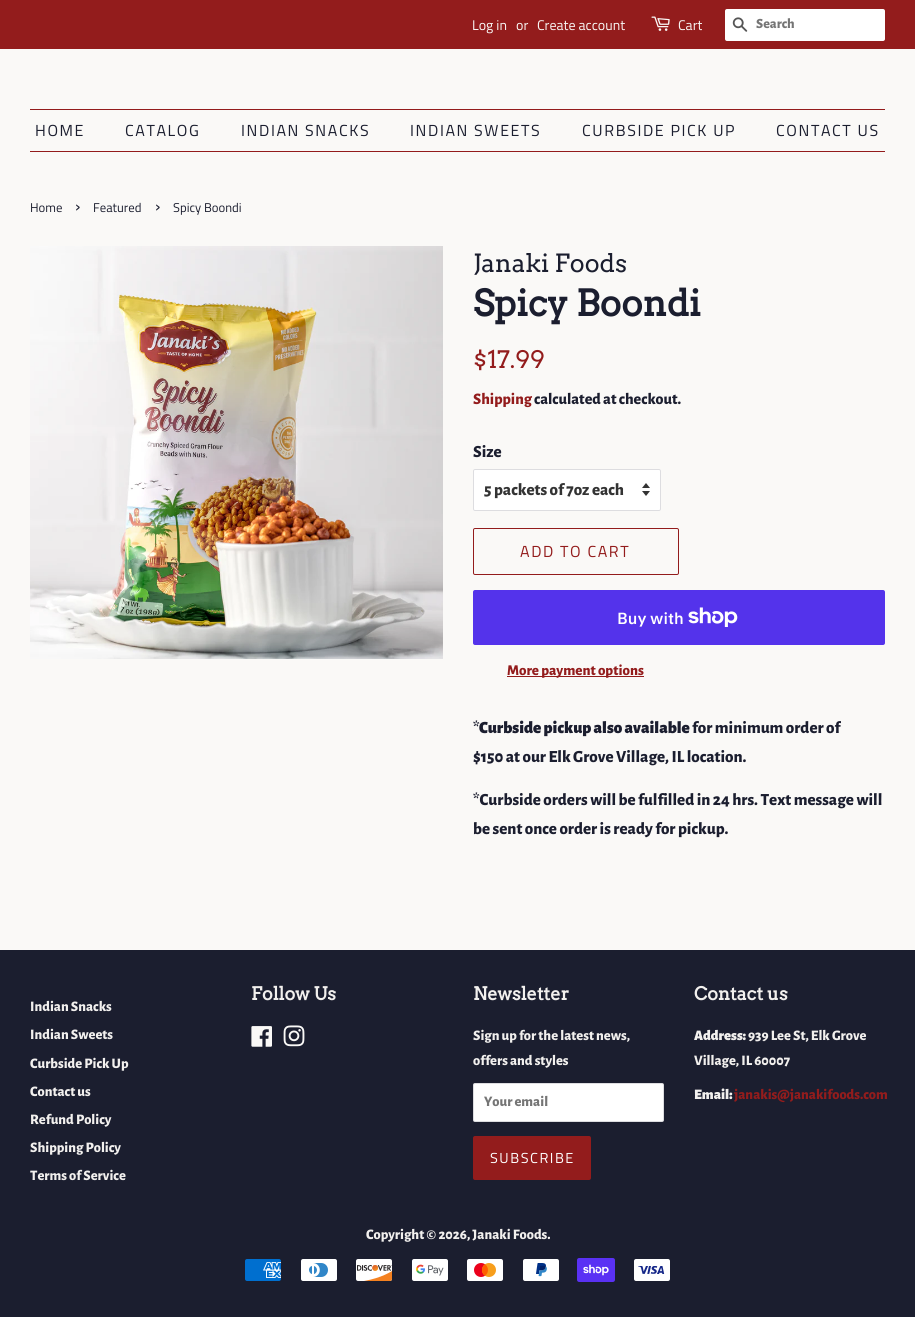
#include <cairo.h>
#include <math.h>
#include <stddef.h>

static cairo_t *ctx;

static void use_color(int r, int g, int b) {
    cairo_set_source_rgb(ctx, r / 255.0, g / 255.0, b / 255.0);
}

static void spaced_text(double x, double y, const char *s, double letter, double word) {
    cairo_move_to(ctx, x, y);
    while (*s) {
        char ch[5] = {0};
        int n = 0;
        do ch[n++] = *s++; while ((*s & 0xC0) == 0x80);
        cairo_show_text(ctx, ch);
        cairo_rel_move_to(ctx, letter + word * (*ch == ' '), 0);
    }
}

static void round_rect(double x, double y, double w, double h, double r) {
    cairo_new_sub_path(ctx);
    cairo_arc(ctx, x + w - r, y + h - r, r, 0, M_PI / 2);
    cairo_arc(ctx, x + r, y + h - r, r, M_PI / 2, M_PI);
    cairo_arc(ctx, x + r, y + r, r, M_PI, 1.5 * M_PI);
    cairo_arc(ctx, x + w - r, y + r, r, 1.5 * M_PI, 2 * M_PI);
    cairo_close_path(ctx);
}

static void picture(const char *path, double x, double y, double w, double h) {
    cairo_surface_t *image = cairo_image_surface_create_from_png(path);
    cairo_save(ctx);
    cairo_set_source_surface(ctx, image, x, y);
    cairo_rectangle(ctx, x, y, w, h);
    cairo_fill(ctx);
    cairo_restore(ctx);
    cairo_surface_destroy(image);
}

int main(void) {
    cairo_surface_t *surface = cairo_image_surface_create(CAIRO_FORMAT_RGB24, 915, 1317);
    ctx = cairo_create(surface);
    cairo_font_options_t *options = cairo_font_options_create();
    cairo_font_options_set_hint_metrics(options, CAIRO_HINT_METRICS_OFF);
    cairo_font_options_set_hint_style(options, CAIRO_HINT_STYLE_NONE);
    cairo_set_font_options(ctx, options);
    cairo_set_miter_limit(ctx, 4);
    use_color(250, 249, 247);
    cairo_paint(ctx);
    use_color(147, 28, 28);
    cairo_rectangle(ctx, 0, 0, 915, 49);
    cairo_fill(ctx);
    cairo_select_font_face(ctx, "Titillium Web", CAIRO_FONT_SLANT_NORMAL, CAIRO_FONT_WEIGHT_NORMAL);
    cairo_set_font_size(ctx, 14);
    use_color(250, 249, 247);
    cairo_move_to(ctx, 472, 30);
    cairo_show_text(ctx, "Log in");
    cairo_move_to(ctx, 516, 30);
    cairo_show_text(ctx, "or");
    cairo_move_to(ctx, 537, 30);
    cairo_show_text(ctx, "Create account");
    picture("img1.png", 651, 16, 19, 15);
    cairo_move_to(ctx, 678, 30);
    cairo_show_text(ctx, "Cart");
    use_color(255, 255, 255);
    round_rect(725, 9, 160, 32, 2);
    cairo_fill(ctx);
    picture("img2.png", 732, 17, 16, 15);
    cairo_select_font_face(ctx, "Alegreya Sans ExtraBold", CAIRO_FONT_SLANT_NORMAL, CAIRO_FONT_WEIGHT_NORMAL);
    use_color(117, 117, 117);
    cairo_move_to(ctx, 756, 28);
    cairo_show_text(ctx, "Search");
    use_color(147, 28, 28);
    cairo_rectangle(ctx, 30, 109, 855, 1);
    cairo_fill(ctx);
    cairo_rectangle(ctx, 30, 151, 855, 1);
    cairo_fill(ctx);
    cairo_select_font_face(ctx, "Titillium Web", CAIRO_FONT_SLANT_NORMAL, CAIRO_FONT_WEIGHT_NORMAL);
    cairo_set_font_size(ctx, 16);
    use_color(27, 30, 47);
    spaced_text(35, 136, "HOME", 1.6, 0);
    spaced_text(125, 136, "CATALOG", 1.6, 0);
    spaced_text(241, 136, "INDIAN SNACKS", 1.6, 0);
    spaced_text(410, 136, "INDIAN SWEETS", 1.6, 0);
    spaced_text(582, 136, "CURBSIDE PICK UP", 1.6, 0);
    spaced_text(776, 136, "CONTACT US", 1.6, 0);
    cairo_set_font_size(ctx, 12.75);
    cairo_move_to(ctx, 30, 212);
    cairo_show_text(ctx, "Home");
    cairo_set_font_size(ctx, 18);
    cairo_move_to(ctx, 75, 212);
    cairo_show_text(ctx, "›");
    cairo_set_font_size(ctx, 12.75);
    cairo_move_to(ctx, 93, 212);
    cairo_show_text(ctx, "Featured");
    cairo_set_font_size(ctx, 18);
    cairo_move_to(ctx, 155, 212);
    cairo_show_text(ctx, "›");
    cairo_set_font_size(ctx, 12.75);
    cairo_move_to(ctx, 173, 212);
    cairo_show_text(ctx, "Spicy Boondi");
    picture("img3.png", 30, 246, 413, 413);
    cairo_select_font_face(ctx, "Arvo", CAIRO_FONT_SLANT_NORMAL, CAIRO_FONT_WEIGHT_NORMAL);
    cairo_set_font_size(ctx, 25);
    cairo_move_to(ctx, 473, 272);
    cairo_show_text(ctx, "Janaki Foods");
    cairo_select_font_face(ctx, "Arvo", CAIRO_FONT_SLANT_NORMAL, CAIRO_FONT_WEIGHT_BOLD);
    cairo_set_font_size(ctx, 36);
    cairo_move_to(ctx, 473, 316);
    cairo_show_text(ctx, "Spicy Boondi");
    cairo_select_font_face(ctx, "Arvo", CAIRO_FONT_SLANT_NORMAL, CAIRO_FONT_WEIGHT_NORMAL);
    cairo_set_font_size(ctx, 24);
    use_color(147, 28, 28);
    cairo_move_to(ctx, 473, 368);
    cairo_show_text(ctx, "$17.99");
    cairo_select_font_face(ctx, "Alegreya Sans ExtraBold", CAIRO_FONT_SLANT_NORMAL, CAIRO_FONT_WEIGHT_NORMAL);
    cairo_set_font_size(ctx, 16);
    cairo_move_to(ctx, 473, 404);
    cairo_show_text(ctx, "Shipping");
    use_color(27, 30, 47);
    cairo_move_to(ctx, 534, 404);
    cairo_show_text(ctx, "calculated at checkout.");
    cairo_set_font_size(ctx, 17);
    cairo_move_to(ctx, 473, 457);
    cairo_show_text(ctx, "Size");
    use_color(255, 255, 255);
    round_rect(473, 469, 188, 42, 2);
    cairo_fill(ctx);
    picture("img4.png", 642, 483, 8, 13);
    round_rect(473.5, 469.5, 187, 41, 1.5);
    use_color(221, 221, 224);
    cairo_set_line_width(ctx, 1);
    cairo_stroke(ctx);
    cairo_save(ctx);
    cairo_rectangle(ctx, 484, 478, 148, 24);
    cairo_clip(ctx);
    use_color(51, 51, 51);
    cairo_move_to(ctx, 484, 495);
    cairo_show_text(ctx, "5 packets of 7oz each");
    cairo_restore(ctx);
    round_rect(473.5, 528.5, 205, 46, 1.5);
    use_color(147, 28, 28);
    cairo_stroke(ctx);
    cairo_select_font_face(ctx, "Titillium Web", CAIRO_FONT_SLANT_NORMAL, CAIRO_FONT_WEIGHT_NORMAL);
    cairo_set_font_size(ctx, 16);
    spaced_text(520, 557, "ADD TO CART", 1.6, 0);
    use_color(84, 51, 235);
    round_rect(473, 590, 412, 55, 2);
    cairo_fill(ctx);
    cairo_select_font_face(ctx, "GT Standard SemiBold", CAIRO_FONT_SLANT_NORMAL, CAIRO_FONT_WEIGHT_NORMAL);
    use_color(255, 255, 255);
    cairo_move_to(ctx, 617, 624);
    cairo_show_text(ctx, "Buy with");
    picture("img5.png", 688, 607, 50, 20);
    use_color(147, 28, 28);
    cairo_rectangle(ctx, 507, 676, 137, 1);
    cairo_fill(ctx);
    cairo_select_font_face(ctx, "Alegreya Sans ExtraBold", CAIRO_FONT_SLANT_NORMAL, CAIRO_FONT_WEIGHT_NORMAL);
    cairo_set_font_size(ctx, 15);
    cairo_move_to(ctx, 507, 675);
    cairo_show_text(ctx, "More payment options");
    cairo_set_font_size(ctx, 17);
    use_color(27, 30, 47);
    cairo_move_to(ctx, 473, 733);
    cairo_show_text(ctx, "*");
    cairo_select_font_face(ctx, "Alegreya Sans Black", CAIRO_FONT_SLANT_NORMAL, CAIRO_FONT_WEIGHT_NORMAL);
    cairo_move_to(ctx, 479, 733);
    cairo_show_text(ctx, "Curbside pickup also available");
    cairo_select_font_face(ctx, "Alegreya Sans ExtraBold", CAIRO_FONT_SLANT_NORMAL, CAIRO_FONT_WEIGHT_NORMAL);
    cairo_move_to(ctx, 692, 733);
    cairo_show_text(ctx, "for minimum order of");
    cairo_move_to(ctx, 473, 762);
    cairo_show_text(ctx, "$150 at our Elk Grove Village, IL location.");
    cairo_move_to(ctx, 473, 805);
    cairo_show_text(ctx, "*Curbside orders will be fulfilled in 24 hrs. Text message will");
    cairo_move_to(ctx, 473, 834);
    cairo_show_text(ctx, "be sent once order is ready for pickup.");
    cairo_rectangle(ctx, 0, 950, 915, 367);
    cairo_fill(ctx);
    cairo_set_font_size(ctx, 14.5);
    use_color(242, 240, 238);
    cairo_move_to(ctx, 30, 1011);
    cairo_show_text(ctx, "Indian Snacks");
    cairo_move_to(ctx, 30, 1039);
    cairo_show_text(ctx, "Indian Sweets");
    cairo_move_to(ctx, 30, 1068);
    cairo_show_text(ctx, "Curbside Pick Up");
    cairo_move_to(ctx, 30, 1096);
    cairo_show_text(ctx, "Contact us");
    cairo_move_to(ctx, 30, 1124);
    cairo_show_text(ctx, "Refund Policy");
    cairo_move_to(ctx, 30, 1152);
    cairo_show_text(ctx, "Shipping Policy");
    cairo_move_to(ctx, 30, 1180);
    cairo_show_text(ctx, "Terms of Service");
    cairo_select_font_face(ctx, "Arvo", CAIRO_FONT_SLANT_NORMAL, CAIRO_FONT_WEIGHT_BOLD);
    cairo_set_font_size(ctx, 18);
    cairo_move_to(ctx, 251, 1000);
    cairo_show_text(ctx, "Follow Us");
    picture("img6.png", 251, 1026, 21, 21);
    picture("img7.png", 283, 1025, 22, 22);
    cairo_move_to(ctx, 473, 1000);
    cairo_show_text(ctx, "Newsletter");
    cairo_select_font_face(ctx, "Alegreya Sans ExtraBold", CAIRO_FONT_SLANT_NORMAL, CAIRO_FONT_WEIGHT_NORMAL);
    cairo_set_font_size(ctx, 14.5);
    cairo_move_to(ctx, 473, 1040);
    cairo_show_text(ctx, "Sign up for the latest news,");
    cairo_move_to(ctx, 473, 1065);
    cairo_show_text(ctx, "offers and styles");
    use_color(255, 255, 255);
    round_rect(473, 1083, 191, 39, 2);
    cairo_fill(ctx);
    round_rect(473.5, 1083.5, 190, 38, 1.5);
    cairo_set_source_rgba(ctx, 0.106, 0.118, 0.184, 0.15);
    cairo_stroke(ctx);
    use_color(117, 117, 117);
    cairo_move_to(ctx, 484, 1106);
    cairo_show_text(ctx, "Your email");
    use_color(147, 28, 28);
    round_rect(473, 1136, 118, 44, 2);
    cairo_fill(ctx);
    cairo_select_font_face(ctx, "Titillium Web", CAIRO_FONT_SLANT_NORMAL, CAIRO_FONT_WEIGHT_NORMAL);
    use_color(255, 255, 255);
    spaced_text(490, 1163, "SUBSCRIBE", 1.5, 0);
    cairo_select_font_face(ctx, "Arvo", CAIRO_FONT_SLANT_NORMAL, CAIRO_FONT_WEIGHT_BOLD);
    cairo_set_font_size(ctx, 18);
    use_color(242, 240, 238);
    cairo_move_to(ctx, 694, 1000);
    cairo_show_text(ctx, "Contact us");
    cairo_select_font_face(ctx, "Alegreya Sans Black", CAIRO_FONT_SLANT_NORMAL, CAIRO_FONT_WEIGHT_NORMAL);
    cairo_set_font_size(ctx, 14.5);
    cairo_move_to(ctx, 694, 1040);
    cairo_show_text(ctx, "Address:");
    cairo_select_font_face(ctx, "Alegreya Sans ExtraBold", CAIRO_FONT_SLANT_NORMAL, CAIRO_FONT_WEIGHT_NORMAL);
    cairo_move_to(ctx, 748, 1040);
    cairo_show_text(ctx, "939 Lee St, Elk Grove");
    cairo_move_to(ctx, 694, 1065);
    cairo_show_text(ctx, "Village, IL 60007");
    cairo_select_font_face(ctx, "Alegreya Sans Black", CAIRO_FONT_SLANT_NORMAL, CAIRO_FONT_WEIGHT_NORMAL);
    cairo_move_to(ctx, 694, 1099);
    cairo_show_text(ctx, "Email:");
    cairo_select_font_face(ctx, "Alegreya Sans ExtraBold", CAIRO_FONT_SLANT_NORMAL, CAIRO_FONT_WEIGHT_NORMAL);
    use_color(147, 28, 28);
    cairo_move_to(ctx, 734, 1099);
    cairo_show_text(ctx, "janakis@janakifoods.com");
    use_color(242, 240, 238);
    cairo_move_to(ctx, 366, 1239);
    cairo_show_text(ctx, "Copyright © 2026, Janaki Foods.");
    picture("img8.png", 245, 1259, 36, 22);
    picture("img9.png", 301, 1259, 36, 22);
    picture("img10.png", 356, 1259, 36, 22);
    picture("img11.png", 412, 1259, 36, 22);
    picture("img12.png", 467, 1259, 36, 22);
    picture("img13.png", 523, 1259, 36, 22);
    picture("img14.png", 577, 1258, 38, 24);
    picture("img15.png", 634, 1259, 36, 22);
    cairo_surface_write_to_png(surface, "result.png");
    cairo_font_options_destroy(options);
    cairo_destroy(ctx);
    cairo_surface_destroy(surface);
    return 0;
}
